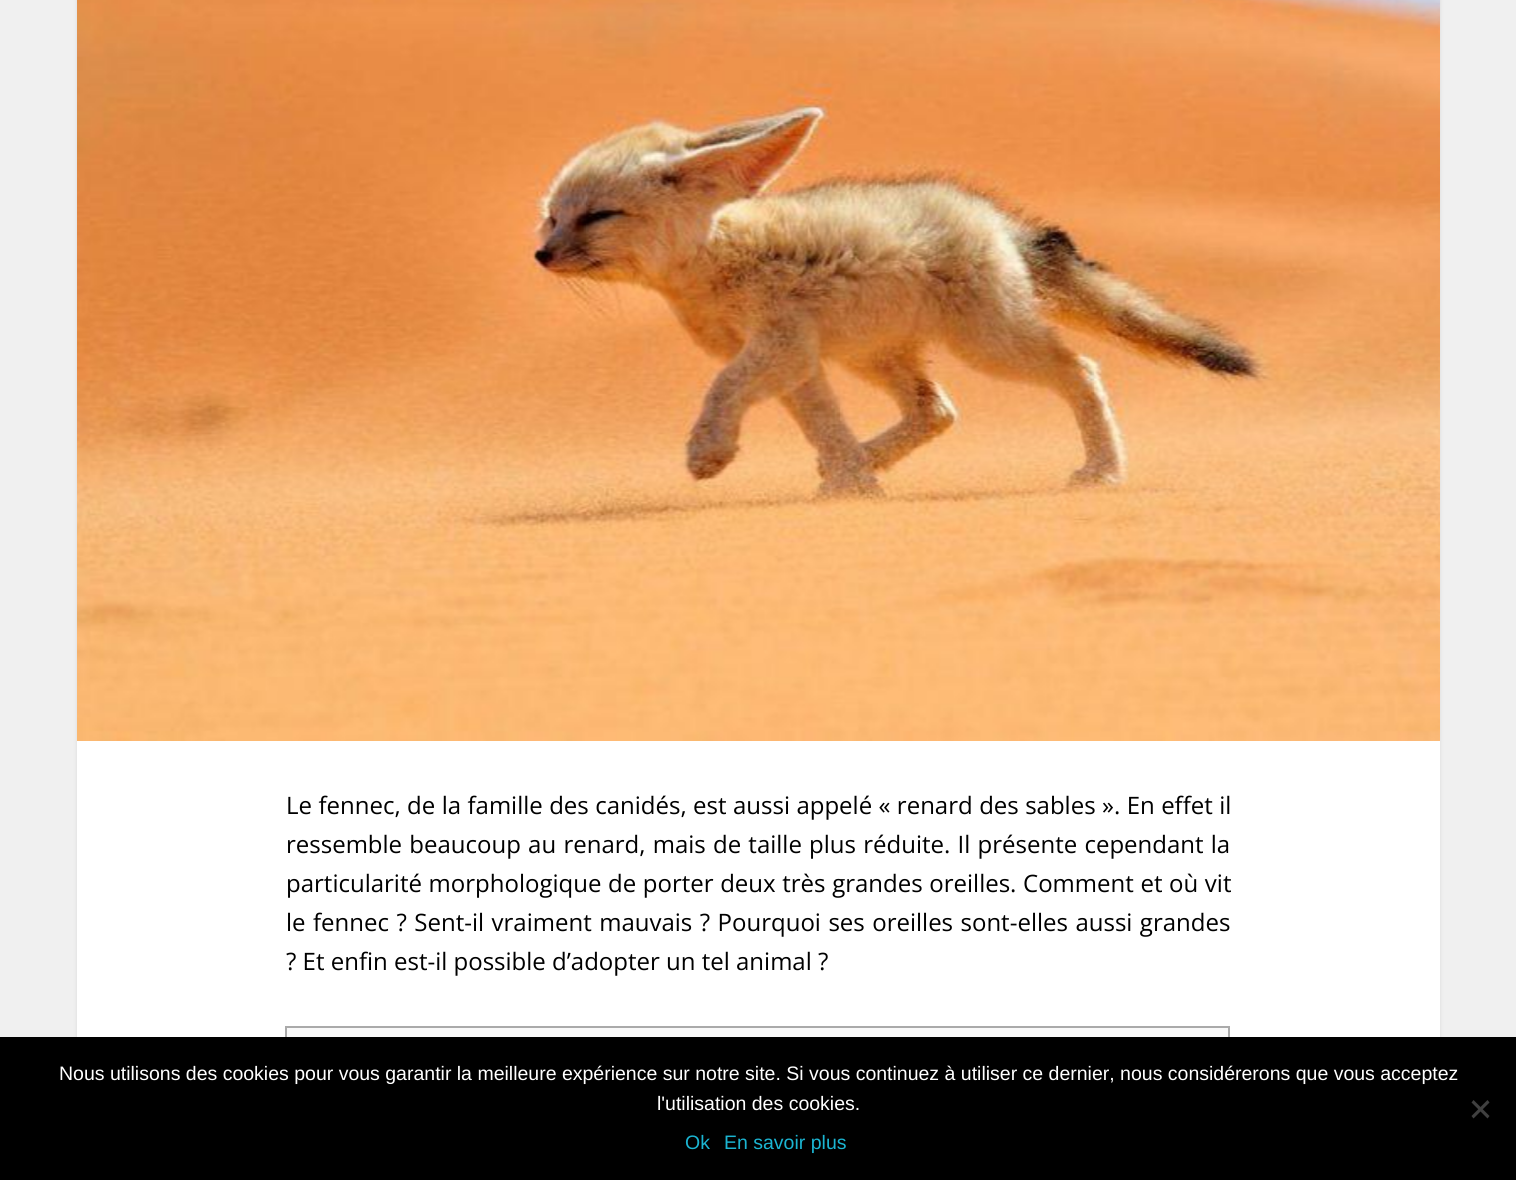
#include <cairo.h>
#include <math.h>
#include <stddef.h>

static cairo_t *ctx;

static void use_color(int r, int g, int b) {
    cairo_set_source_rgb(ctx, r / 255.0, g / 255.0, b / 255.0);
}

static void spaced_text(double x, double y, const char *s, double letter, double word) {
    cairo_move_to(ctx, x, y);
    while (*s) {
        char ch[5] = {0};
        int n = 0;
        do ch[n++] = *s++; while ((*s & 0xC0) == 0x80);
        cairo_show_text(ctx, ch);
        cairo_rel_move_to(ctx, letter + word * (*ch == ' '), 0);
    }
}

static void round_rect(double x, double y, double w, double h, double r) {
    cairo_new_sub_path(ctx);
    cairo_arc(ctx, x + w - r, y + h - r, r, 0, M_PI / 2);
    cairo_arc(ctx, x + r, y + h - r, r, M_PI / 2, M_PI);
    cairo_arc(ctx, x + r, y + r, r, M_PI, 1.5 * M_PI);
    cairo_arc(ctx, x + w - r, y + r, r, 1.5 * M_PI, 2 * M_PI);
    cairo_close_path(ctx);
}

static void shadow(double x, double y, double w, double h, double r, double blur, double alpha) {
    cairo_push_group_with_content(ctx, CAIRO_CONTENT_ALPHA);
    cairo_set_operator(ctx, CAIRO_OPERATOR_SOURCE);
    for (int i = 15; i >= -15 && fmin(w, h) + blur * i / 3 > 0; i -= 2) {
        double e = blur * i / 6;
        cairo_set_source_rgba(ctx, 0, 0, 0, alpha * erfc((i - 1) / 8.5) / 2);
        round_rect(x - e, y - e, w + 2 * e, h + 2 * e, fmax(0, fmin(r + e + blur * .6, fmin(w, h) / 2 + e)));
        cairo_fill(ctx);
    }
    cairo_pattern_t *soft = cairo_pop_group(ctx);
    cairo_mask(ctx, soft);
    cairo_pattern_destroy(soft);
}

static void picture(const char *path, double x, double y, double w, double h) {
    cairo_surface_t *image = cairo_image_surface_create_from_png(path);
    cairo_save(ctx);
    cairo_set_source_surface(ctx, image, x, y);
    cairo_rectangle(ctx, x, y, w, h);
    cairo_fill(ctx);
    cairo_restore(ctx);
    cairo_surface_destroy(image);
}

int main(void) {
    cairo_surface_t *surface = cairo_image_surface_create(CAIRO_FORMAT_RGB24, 1516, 1180);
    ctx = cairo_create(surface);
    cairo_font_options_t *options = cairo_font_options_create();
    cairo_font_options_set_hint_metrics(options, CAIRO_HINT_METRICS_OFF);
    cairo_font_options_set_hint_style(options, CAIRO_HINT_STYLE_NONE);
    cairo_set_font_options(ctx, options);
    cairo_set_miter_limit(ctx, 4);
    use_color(240, 240, 240);
    cairo_paint(ctx);
    use_color(0, 0, 0);
    shadow(77, -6, 1363, 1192, 0, 2, 0.1);
    use_color(255, 255, 255);
    cairo_rectangle(ctx, 77, 741, 1363, 296);
    cairo_fill(ctx);
    picture("img1.png", 77, 0, 1363, 741);
    cairo_select_font_face(ctx, "Open Sans", CAIRO_FONT_SLANT_NORMAL, CAIRO_FONT_WEIGHT_NORMAL);
    cairo_set_font_size(ctx, 24);
    use_color(0, 0, 0);
    spaced_text(286, 814, "Le fennec, de la famille des canidés, est aussi appelé « renard des sables ». En effet il", 0, 0.2);
    spaced_text(286, 853, "ressemble beaucoup au renard, mais de taille plus réduite. Il présente cependant la", 0, 1);
    spaced_text(286, 892, "particularité morphologique de porter deux très grandes oreilles. Comment et où vit", 0, 0.4);
    spaced_text(286, 931, "le fennec ? Sent-il vraiment mauvais ? Pourquoi ses oreilles sont-elles aussi grandes", 0, 1.25);
    cairo_move_to(ctx, 286, 970);
    cairo_show_text(ctx, "? Et enfin est-il possible d’adopter un tel animal ?");
    use_color(249, 249, 249);
    cairo_rectangle(ctx, 287, 1028, 941, 9);
    cairo_fill(ctx);
    cairo_rectangle(ctx, 286, 1027, 943, 91);
    use_color(170, 170, 170);
    cairo_stroke(ctx);
    use_color(0, 0, 0);
    cairo_rectangle(ctx, 0, 1037, 1516, 143);
    cairo_fill(ctx);
    cairo_select_font_face(ctx, "Liberation Sans", CAIRO_FONT_SLANT_NORMAL, CAIRO_FONT_WEIGHT_NORMAL);
    cairo_set_font_size(ctx, 19.5);
    use_color(255, 255, 255);
    cairo_move_to(ctx, 59, 1080);
    cairo_show_text(ctx, "Nous utilisons des cookies pour vous garantir la meilleure expérience sur notre site. Si vous continuez à utiliser ce dernier, nous considérerons que vous acceptez");
    cairo_move_to(ctx, 657, 1110);
    cairo_show_text(ctx, "l'utilisation des cookies.");
    use_color(64, 64, 64);
    cairo_new_path(ctx);
    cairo_move_to(ctx, 1487.5, 1100);
    cairo_line_to(ctx, 1489.5, 1102.5);
    cairo_line_to(ctx, 1473.5, 1118.5);
    cairo_line_to(ctx, 1471.5, 1116);
    cairo_close_path(ctx);
    cairo_fill(ctx);
    cairo_new_path(ctx);
    cairo_move_to(ctx, 1471.5, 1102.5);
    cairo_line_to(ctx, 1473.5, 1100);
    cairo_line_to(ctx, 1489.5, 1116);
    cairo_line_to(ctx, 1487.5, 1118.5);
    cairo_close_path(ctx);
    cairo_fill(ctx);
    use_color(27, 181, 210);
    cairo_move_to(ctx, 685, 1149);
    cairo_show_text(ctx, "Ok");
    cairo_move_to(ctx, 724, 1149);
    cairo_show_text(ctx, "En savoir plus");
    cairo_surface_write_to_png(surface, "result.png");
    cairo_font_options_destroy(options);
    cairo_destroy(ctx);
    cairo_surface_destroy(surface);
    return 0;
}
